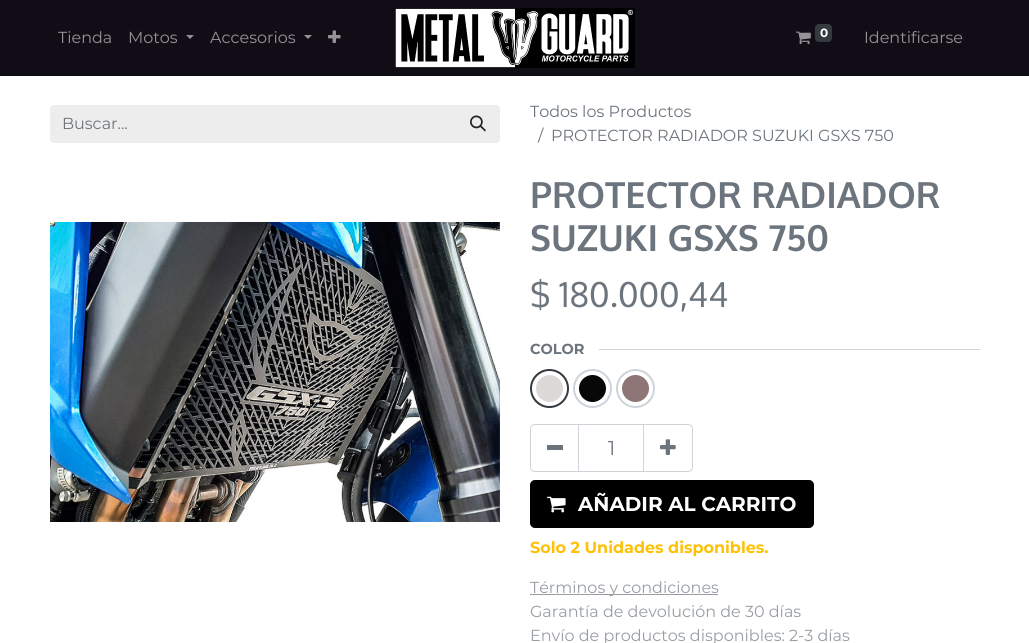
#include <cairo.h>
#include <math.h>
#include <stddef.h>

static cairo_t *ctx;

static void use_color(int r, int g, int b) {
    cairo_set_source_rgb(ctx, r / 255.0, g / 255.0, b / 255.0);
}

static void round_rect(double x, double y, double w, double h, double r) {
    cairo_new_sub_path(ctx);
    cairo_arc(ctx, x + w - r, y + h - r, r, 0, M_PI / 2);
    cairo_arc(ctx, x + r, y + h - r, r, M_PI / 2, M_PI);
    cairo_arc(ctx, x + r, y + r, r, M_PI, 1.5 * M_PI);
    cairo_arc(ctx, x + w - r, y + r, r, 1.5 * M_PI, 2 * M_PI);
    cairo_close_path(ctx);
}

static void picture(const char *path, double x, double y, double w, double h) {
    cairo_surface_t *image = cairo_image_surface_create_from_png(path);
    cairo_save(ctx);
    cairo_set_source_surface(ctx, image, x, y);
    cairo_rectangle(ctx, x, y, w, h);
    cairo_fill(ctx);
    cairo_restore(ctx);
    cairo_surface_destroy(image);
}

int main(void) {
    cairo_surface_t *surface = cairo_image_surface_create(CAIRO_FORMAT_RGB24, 1029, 643);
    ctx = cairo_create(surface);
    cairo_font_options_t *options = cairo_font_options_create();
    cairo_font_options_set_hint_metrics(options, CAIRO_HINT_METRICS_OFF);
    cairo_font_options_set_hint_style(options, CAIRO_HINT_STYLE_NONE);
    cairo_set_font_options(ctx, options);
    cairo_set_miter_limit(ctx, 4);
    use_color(255, 255, 255);
    cairo_paint(ctx);
    use_color(17, 13, 22);
    cairo_rectangle(ctx, 0, 0, 1029, 76);
    cairo_fill(ctx);
    cairo_select_font_face(ctx, "Montserrat", CAIRO_FONT_SLANT_NORMAL, CAIRO_FONT_WEIGHT_NORMAL);
    cairo_set_font_size(ctx, 16);
    use_color(148, 146, 150);
    cairo_move_to(ctx, 58, 43);
    cairo_show_text(ctx, "Tienda");
    cairo_move_to(ctx, 128, 43);
    cairo_show_text(ctx, "Motos");
    cairo_new_path(ctx);
    cairo_move_to(ctx, 186, 35);
    cairo_line_to(ctx, 194, 35);
    cairo_line_to(ctx, 190, 39);
    cairo_close_path(ctx);
    cairo_fill(ctx);
    cairo_move_to(ctx, 210, 43);
    cairo_show_text(ctx, "Accesorios");
    cairo_new_path(ctx);
    cairo_move_to(ctx, 304, 35);
    cairo_line_to(ctx, 312, 35);
    cairo_line_to(ctx, 308, 39);
    cairo_close_path(ctx);
    cairo_fill(ctx);
    picture("img1.png", 328, 30, 13, 13);
    picture("img2.png", 395, 8, 240, 60);
    picture("img3.png", 796, 31, 15, 14);
    use_color(52, 58, 64);
    round_rect(815, 24, 17, 18, 4);
    cairo_fill(ctx);
    cairo_select_font_face(ctx, "Montserrat", CAIRO_FONT_SLANT_NORMAL, CAIRO_FONT_WEIGHT_BOLD);
    cairo_set_font_size(ctx, 12);
    use_color(255, 255, 255);
    cairo_move_to(ctx, 820, 37);
    cairo_show_text(ctx, "0");
    cairo_select_font_face(ctx, "Montserrat", CAIRO_FONT_SLANT_NORMAL, CAIRO_FONT_WEIGHT_NORMAL);
    cairo_set_font_size(ctx, 16);
    use_color(148, 146, 150);
    cairo_move_to(ctx, 864, 43);
    cairo_show_text(ctx, "Identificarse");
    use_color(237, 237, 237);
    cairo_new_path(ctx);
    cairo_move_to(ctx, 54, 105);
    cairo_line_to(ctx, 458, 105);
    cairo_line_to(ctx, 458, 143);
    cairo_line_to(ctx, 54, 143);
    cairo_curve_to(ctx, 52, 143, 50, 141, 50, 139);
    cairo_line_to(ctx, 50, 109);
    cairo_curve_to(ctx, 50, 107, 52, 105, 54, 105);
    cairo_close_path(ctx);
    cairo_fill(ctx);
    use_color(108, 117, 125);
    cairo_move_to(ctx, 62, 129);
    cairo_show_text(ctx, "Buscar...");
    use_color(237, 237, 237);
    cairo_new_path(ctx);
    cairo_move_to(ctx, 457.5, 105.5);
    cairo_line_to(ctx, 496, 105.5);
    cairo_curve_to(ctx, 498, 105.5, 499.5, 107, 499.5, 109);
    cairo_line_to(ctx, 499.5, 139);
    cairo_curve_to(ctx, 499.5, 141, 498, 142.5, 496, 142.5);
    cairo_line_to(ctx, 457.5, 142.5);
    cairo_close_path(ctx);
    cairo_fill_preserve(ctx);
    cairo_set_line_width(ctx, 1);
    cairo_stroke(ctx);
    picture("img4.png", 470, 115, 16, 17);
    use_color(108, 117, 125);
    cairo_move_to(ctx, 530, 117);
    cairo_show_text(ctx, "Todos los Productos");
    cairo_move_to(ctx, 538, 141);
    cairo_show_text(ctx, "/");
    cairo_move_to(ctx, 551, 141);
    cairo_show_text(ctx, "PROTECTOR RADIADOR SUZUKI GSXS 750");
    picture("img5.png", 50, 222, 450, 300);
    cairo_select_font_face(ctx, "Oxygen", CAIRO_FONT_SLANT_NORMAL, CAIRO_FONT_WEIGHT_BOLD);
    cairo_set_font_size(ctx, 36);
    cairo_move_to(ctx, 530, 208);
    cairo_show_text(ctx, "PROTECTOR RADIADOR");
    cairo_move_to(ctx, 530, 251);
    cairo_show_text(ctx, "SUZUKI GSXS 750");
    cairo_select_font_face(ctx, "Oxygen", CAIRO_FONT_SLANT_NORMAL, CAIRO_FONT_WEIGHT_NORMAL);
    cairo_set_font_size(ctx, 34);
    cairo_move_to(ctx, 530, 307);
    cairo_show_text(ctx, "$ 180.000,44");
    cairo_select_font_face(ctx, "Montserrat", CAIRO_FONT_SLANT_NORMAL, CAIRO_FONT_WEIGHT_BOLD);
    cairo_set_font_size(ctx, 14.5);
    cairo_move_to(ctx, 530, 354);
    cairo_show_text(ctx, "COLOR");
    use_color(206, 212, 218);
    cairo_rectangle(ctx, 599, 349, 381, 1);
    cairo_fill(ctx);
    use_color(222, 217, 217);
    cairo_arc(ctx, 549.5, 388.5, 17, 0, 2 * M_PI);
    cairo_fill_preserve(ctx);
    use_color(52, 58, 64);
    cairo_set_line_width(ctx, 5);
    cairo_stroke(ctx);
    cairo_arc(ctx, 549.5, 388.5, 15.5, 0, 2 * M_PI);
    use_color(255, 255, 255);
    cairo_set_line_width(ctx, 4);
    cairo_stroke(ctx);
    use_color(8, 8, 8);
    cairo_arc(ctx, 592.5, 388.5, 17, 0, 2 * M_PI);
    cairo_fill_preserve(ctx);
    use_color(206, 212, 218);
    cairo_set_line_width(ctx, 5);
    cairo_stroke(ctx);
    cairo_arc(ctx, 592.5, 388.5, 15.5, 0, 2 * M_PI);
    use_color(255, 255, 255);
    cairo_set_line_width(ctx, 4);
    cairo_stroke(ctx);
    use_color(143, 118, 118);
    cairo_arc(ctx, 635.5, 388.5, 17, 0, 2 * M_PI);
    cairo_fill_preserve(ctx);
    use_color(206, 212, 218);
    cairo_set_line_width(ctx, 5);
    cairo_stroke(ctx);
    cairo_arc(ctx, 635.5, 388.5, 15.5, 0, 2 * M_PI);
    use_color(255, 255, 255);
    cairo_set_line_width(ctx, 4);
    cairo_stroke(ctx);
    cairo_rectangle(ctx, 578.5, 424.5, 65, 47);
    use_color(206, 212, 218);
    cairo_set_line_width(ctx, 1);
    cairo_stroke(ctx);
    cairo_new_path(ctx);
    cairo_move_to(ctx, 535, 424.5);
    cairo_line_to(ctx, 578.5, 424.5);
    cairo_line_to(ctx, 578.5, 471.5);
    cairo_line_to(ctx, 535, 471.5);
    cairo_curve_to(ctx, 532.5, 471.5, 530.5, 469.5, 530.5, 467);
    cairo_line_to(ctx, 530.5, 429);
    cairo_curve_to(ctx, 530.5, 426.5, 532.5, 424.5, 535, 424.5);
    cairo_close_path(ctx);
    cairo_stroke(ctx);
    use_color(108, 117, 125);
    cairo_rectangle(ctx, 547, 445, 16, 5);
    cairo_fill(ctx);
    cairo_select_font_face(ctx, "Montserrat", CAIRO_FONT_SLANT_NORMAL, CAIRO_FONT_WEIGHT_NORMAL);
    cairo_set_font_size(ctx, 20);
    cairo_move_to(ctx, 608, 455);
    cairo_show_text(ctx, "1");
    cairo_new_path(ctx);
    cairo_move_to(ctx, 643.5, 424.5);
    cairo_line_to(ctx, 688, 424.5);
    cairo_curve_to(ctx, 690.5, 424.5, 692.5, 426.5, 692.5, 429);
    cairo_line_to(ctx, 692.5, 467);
    cairo_curve_to(ctx, 692.5, 469.5, 690.5, 471.5, 688, 471.5);
    cairo_line_to(ctx, 643.5, 471.5);
    cairo_close_path(ctx);
    use_color(206, 212, 218);
    cairo_stroke(ctx);
    picture("img6.png", 660, 439, 16, 16);
    use_color(0, 0, 0);
    round_rect(530.5, 480.5, 283, 47, 4.5);
    cairo_fill_preserve(ctx);
    cairo_stroke(ctx);
    picture("img7.png", 547, 496, 19, 17);
    cairo_select_font_face(ctx, "Montserrat", CAIRO_FONT_SLANT_NORMAL, CAIRO_FONT_WEIGHT_BOLD);
    use_color(255, 255, 255);
    cairo_move_to(ctx, 578, 511);
    cairo_show_text(ctx, "AÑADIR AL CARRITO");
    cairo_set_font_size(ctx, 16);
    use_color(255, 193, 7);
    cairo_move_to(ctx, 530, 553);
    cairo_show_text(ctx, "Solo 2 Unidades disponibles.");
    use_color(152, 158, 164);
    cairo_rectangle(ctx, 530, 594, 188, 1);
    cairo_fill(ctx);
    cairo_select_font_face(ctx, "Montserrat", CAIRO_FONT_SLANT_NORMAL, CAIRO_FONT_WEIGHT_NORMAL);
    cairo_move_to(ctx, 530, 593);
    cairo_show_text(ctx, "Términos y condiciones");
    cairo_move_to(ctx, 530, 617);
    cairo_show_text(ctx, "Garantía de devolución de 30 días");
    cairo_move_to(ctx, 530, 641);
    cairo_show_text(ctx, "Envío de productos disponibles: 2-3 días");
    cairo_surface_write_to_png(surface, "result.png");
    cairo_font_options_destroy(options);
    cairo_destroy(ctx);
    cairo_surface_destroy(surface);
    return 0;
}
